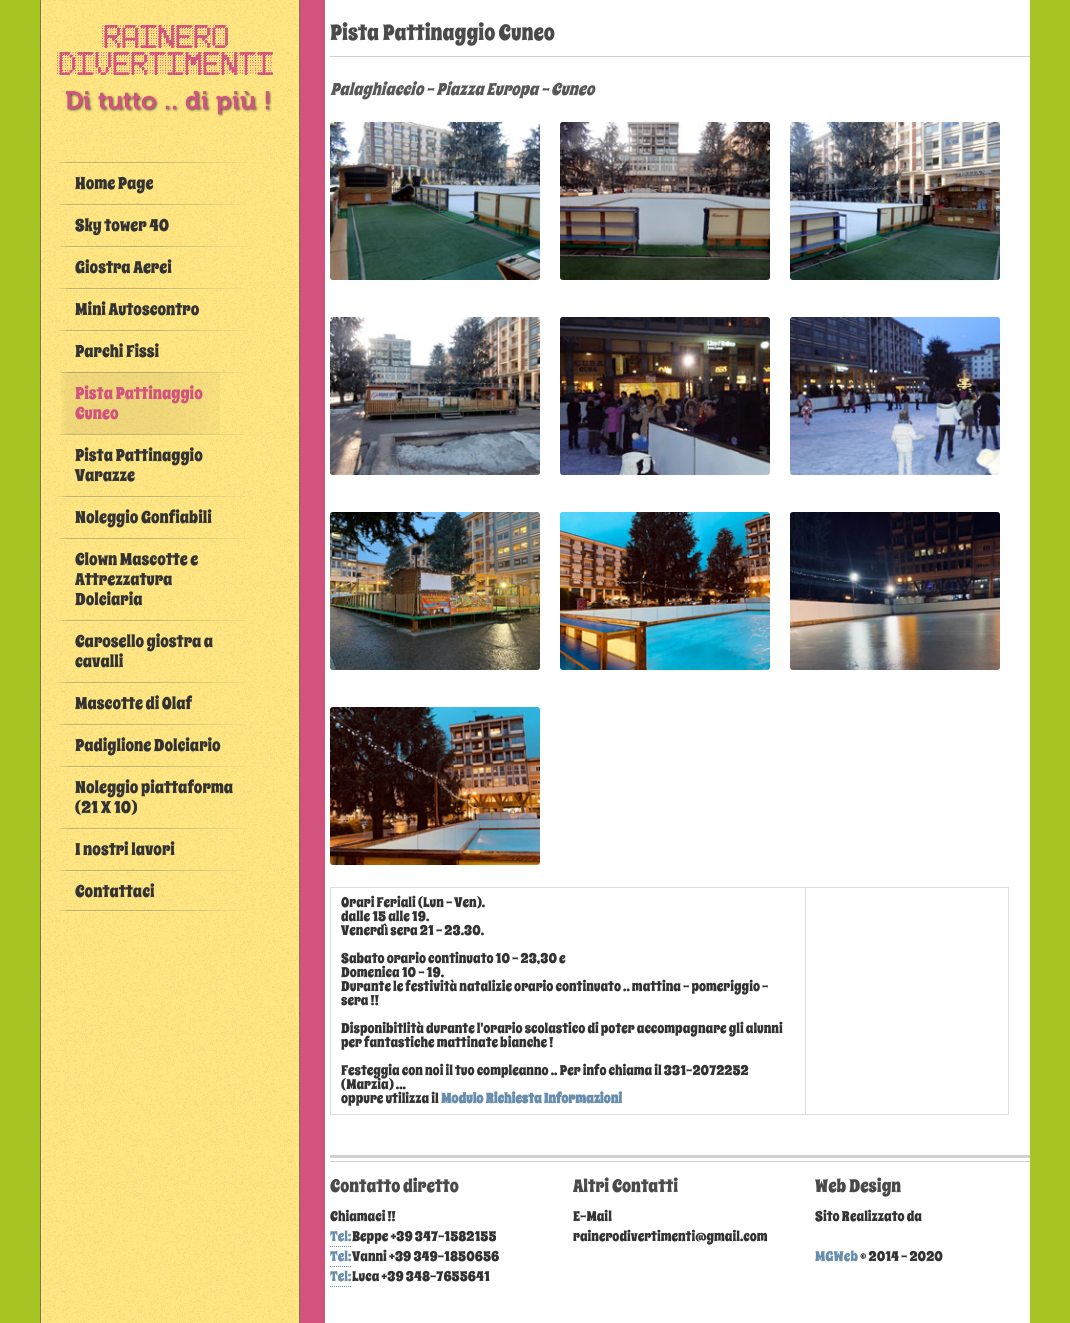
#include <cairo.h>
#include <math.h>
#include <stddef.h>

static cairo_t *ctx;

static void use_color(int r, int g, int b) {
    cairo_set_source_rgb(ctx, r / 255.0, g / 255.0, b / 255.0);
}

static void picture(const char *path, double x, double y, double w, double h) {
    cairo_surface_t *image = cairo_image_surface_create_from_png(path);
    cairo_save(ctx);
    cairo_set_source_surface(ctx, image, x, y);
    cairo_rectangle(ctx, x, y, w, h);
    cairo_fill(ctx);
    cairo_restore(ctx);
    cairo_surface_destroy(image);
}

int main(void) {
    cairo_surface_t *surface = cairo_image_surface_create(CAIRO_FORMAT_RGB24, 1070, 1323);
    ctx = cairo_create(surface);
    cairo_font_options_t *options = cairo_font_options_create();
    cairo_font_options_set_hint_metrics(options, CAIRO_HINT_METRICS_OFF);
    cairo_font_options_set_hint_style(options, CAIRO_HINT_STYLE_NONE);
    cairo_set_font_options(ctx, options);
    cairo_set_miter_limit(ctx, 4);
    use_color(166, 196, 36);
    cairo_paint(ctx);
    use_color(210, 83, 126);
    cairo_rectangle(ctx, 300, 0, 25, 1323);
    cairo_fill(ctx);
    use_color(255, 230, 130);
    cairo_rectangle(ctx, 40, 0, 260, 1323);
    cairo_fill(ctx);
    picture("img1.png", 40, 0, 260, 1323);
    cairo_rectangle(ctx, 41.5, -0.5, 257, 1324);
    cairo_set_source_rgba(ctx, 1, 1, 1, 0.15);
    cairo_set_line_width(ctx, 1);
    cairo_stroke(ctx);
    cairo_set_source_rgba(ctx, 0, 0, 0, 0.5);
    cairo_rectangle(ctx, 299, 0, 1, 1323);
    cairo_fill(ctx);
    cairo_rectangle(ctx, 40, 0, 1, 1323);
    cairo_fill(ctx);
    picture("img2.png", 57, 25, 216, 92);
    picture("img3.png", 58, 910, 188, 2);
    picture("img4.png", 58, 162, 188, 2);
    cairo_select_font_face(ctx, "Spicy Rice", CAIRO_FONT_SLANT_NORMAL, CAIRO_FONT_WEIGHT_NORMAL);
    cairo_set_font_size(ctx, 17);
    use_color(51, 51, 51);
    cairo_move_to(ctx, 75, 189);
    cairo_show_text(ctx, "Home Page");
    picture("img5.png", 58, 204, 188, 2);
    cairo_move_to(ctx, 75, 231);
    cairo_show_text(ctx, "Sky tower 40");
    picture("img6.png", 58, 246, 188, 2);
    cairo_move_to(ctx, 75, 273);
    cairo_show_text(ctx, "Giostra Aerei");
    picture("img7.png", 58, 288, 188, 2);
    cairo_move_to(ctx, 75, 315);
    cairo_show_text(ctx, "Mini Autoscontro");
    picture("img8.png", 58, 330, 188, 2);
    cairo_move_to(ctx, 75, 357);
    cairo_show_text(ctx, "Parchi Fissi");
    picture("img9.png", 58, 372, 188, 2);
    picture("img10.png", 61, 372, 159, 62);
    use_color(210, 83, 126);
    cairo_move_to(ctx, 75, 399);
    cairo_show_text(ctx, "Pista Pattinaggio");
    cairo_move_to(ctx, 75, 419);
    cairo_show_text(ctx, "Cuneo");
    picture("img11.png", 58, 434, 188, 2);
    use_color(51, 51, 51);
    cairo_move_to(ctx, 75, 461);
    cairo_show_text(ctx, "Pista Pattinaggio");
    cairo_move_to(ctx, 75, 481);
    cairo_show_text(ctx, "Varazze");
    picture("img12.png", 58, 496, 188, 2);
    cairo_move_to(ctx, 75, 523);
    cairo_show_text(ctx, "Noleggio Gonfiabili");
    picture("img13.png", 58, 538, 188, 2);
    cairo_move_to(ctx, 75, 565);
    cairo_show_text(ctx, "Clown Mascotte e");
    cairo_move_to(ctx, 75, 585);
    cairo_show_text(ctx, "Attrezzatura");
    cairo_move_to(ctx, 75, 605);
    cairo_show_text(ctx, "Dolciaria");
    picture("img14.png", 58, 620, 188, 2);
    cairo_move_to(ctx, 75, 647);
    cairo_show_text(ctx, "Carosello giostra a");
    cairo_move_to(ctx, 75, 667);
    cairo_show_text(ctx, "cavalli");
    picture("img15.png", 58, 682, 188, 2);
    cairo_move_to(ctx, 75, 709);
    cairo_show_text(ctx, "Mascotte di Olaf");
    picture("img16.png", 58, 724, 188, 2);
    cairo_move_to(ctx, 75, 751);
    cairo_show_text(ctx, "Padiglione Dolciario");
    picture("img17.png", 58, 766, 188, 2);
    cairo_move_to(ctx, 75, 793);
    cairo_show_text(ctx, "Noleggio piattaforma");
    cairo_move_to(ctx, 75, 813);
    cairo_show_text(ctx, "(21 X 10)");
    picture("img18.png", 58, 828, 188, 2);
    cairo_move_to(ctx, 75, 855);
    cairo_show_text(ctx, "I nostri lavori");
    picture("img19.png", 58, 870, 188, 2);
    cairo_move_to(ctx, 75, 897);
    cairo_show_text(ctx, "Contattaci");
    use_color(255, 255, 255);
    cairo_rectangle(ctx, 325, 0, 705, 1323);
    cairo_fill(ctx);
    cairo_set_font_size(ctx, 22);
    use_color(74, 74, 74);
    cairo_move_to(ctx, 330, 40);
    cairo_show_text(ctx, "Pista Pattinaggio Cuneo");
    use_color(209, 209, 209);
    cairo_rectangle(ctx, 330, 56, 700, 1);
    cairo_fill(ctx);
    cairo_select_font_face(ctx, "Spicy Rice", CAIRO_FONT_SLANT_ITALIC, CAIRO_FONT_WEIGHT_NORMAL);
    cairo_set_font_size(ctx, 17);
    use_color(88, 88, 88);
    cairo_move_to(ctx, 330, 95);
    cairo_show_text(ctx, "Palaghiaccio - Piazza Europa - Cuneo");
    picture("img20.png", 330, 122, 210, 158);
    picture("img21.png", 560, 122, 210, 158);
    picture("img22.png", 790, 122, 210, 158);
    picture("img23.png", 330, 317, 210, 158);
    picture("img24.png", 560, 317, 210, 158);
    picture("img25.png", 790, 317, 210, 158);
    picture("img26.png", 330, 512, 210, 158);
    picture("img27.png", 560, 512, 210, 158);
    picture("img28.png", 790, 512, 210, 158);
    picture("img29.png", 330, 707, 210, 158);
    use_color(222, 222, 222);
    cairo_rectangle(ctx, 330, 1114, 679, 1);
    cairo_fill(ctx);
    cairo_rectangle(ctx, 330, 887, 679, 1);
    cairo_fill(ctx);
    cairo_rectangle(ctx, 330, 887, 1, 228);
    cairo_fill(ctx);
    cairo_rectangle(ctx, 805, 887, 1, 228);
    cairo_fill(ctx);
    cairo_select_font_face(ctx, "Spicy Rice", CAIRO_FONT_SLANT_NORMAL, CAIRO_FONT_WEIGHT_NORMAL);
    cairo_set_font_size(ctx, 14);
    use_color(51, 51, 51);
    cairo_move_to(ctx, 341, 907);
    cairo_show_text(ctx, "Orari Feriali (Lun - Ven).");
    cairo_move_to(ctx, 341, 921);
    cairo_show_text(ctx, "dalle 15 alle 19.");
    cairo_move_to(ctx, 341, 935);
    cairo_show_text(ctx, "Venerdì sera 21 - 23.30.");
    cairo_move_to(ctx, 341, 963);
    cairo_show_text(ctx, "Sabato orario continuato 10 - 23,30 e");
    cairo_move_to(ctx, 341, 977);
    cairo_show_text(ctx, "Domenica 10 - 19.");
    cairo_move_to(ctx, 341, 991);
    cairo_show_text(ctx, "Durante le festività natalizie orario continuato .. mattina - pomeriggio -");
    cairo_move_to(ctx, 341, 1005);
    cairo_show_text(ctx, "sera !!");
    cairo_move_to(ctx, 341, 1033);
    cairo_show_text(ctx, "Disponibitlità durante l'orario scolastico di poter accompagnare gli alunni");
    cairo_move_to(ctx, 341, 1047);
    cairo_show_text(ctx, "per fantastiche mattinate bianche !");
    cairo_move_to(ctx, 341, 1075);
    cairo_show_text(ctx, "Festeggia con noi il tuo compleanno .. Per info chiama il 331-2072252");
    cairo_move_to(ctx, 341, 1089);
    cairo_show_text(ctx, "(Marzia) ...");
    cairo_move_to(ctx, 341, 1103);
    cairo_show_text(ctx, "oppure utilizza il");
    cairo_select_font_face(ctx, "Spicy Rice", CAIRO_FONT_SLANT_NORMAL, CAIRO_FONT_WEIGHT_BOLD);
    use_color(104, 141, 173);
    cairo_move_to(ctx, 441, 1103);
    cairo_show_text(ctx, "Modulo Richiesta Informazioni");
    use_color(222, 222, 222);
    cairo_rectangle(ctx, 1008, 887, 1, 228);
    cairo_fill(ctx);
    picture("img30.png", 330, 1155, 700, 7);
    cairo_select_font_face(ctx, "Spicy Rice", CAIRO_FONT_SLANT_NORMAL, CAIRO_FONT_WEIGHT_NORMAL);
    cairo_set_font_size(ctx, 18);
    use_color(74, 74, 74);
    cairo_move_to(ctx, 330, 1192);
    cairo_show_text(ctx, "Contatto diretto");
    cairo_set_font_size(ctx, 14);
    use_color(51, 51, 51);
    cairo_move_to(ctx, 330, 1221);
    cairo_show_text(ctx, "Chiamaci !!");
    use_color(104, 141, 173);
    cairo_move_to(ctx, 330, 1241);
    cairo_show_text(ctx, "Tel:");
    cairo_new_path(ctx);
    cairo_move_to(ctx, 330, 1246.5);
    cairo_line_to(ctx, 352, 1246.5);
    cairo_set_dash(ctx, (double[]){1, 1}, 2, 0);
    cairo_stroke(ctx);
    use_color(51, 51, 51);
    cairo_move_to(ctx, 352, 1241);
    cairo_show_text(ctx, "Beppe +39 347-1582155");
    use_color(104, 141, 173);
    cairo_move_to(ctx, 330, 1261);
    cairo_show_text(ctx, "Tel:");
    cairo_new_path(ctx);
    cairo_move_to(ctx, 330, 1266.5);
    cairo_line_to(ctx, 352, 1266.5);
    cairo_stroke(ctx);
    use_color(51, 51, 51);
    cairo_move_to(ctx, 352, 1261);
    cairo_show_text(ctx, "Vanni +39 349-1850656");
    use_color(104, 141, 173);
    cairo_move_to(ctx, 330, 1281);
    cairo_show_text(ctx, "Tel:");
    cairo_new_path(ctx);
    cairo_move_to(ctx, 330, 1286.5);
    cairo_line_to(ctx, 352, 1286.5);
    cairo_stroke(ctx);
    use_color(51, 51, 51);
    cairo_move_to(ctx, 352, 1281);
    cairo_show_text(ctx, "Luca +39 348-7655641");
    cairo_set_font_size(ctx, 18);
    use_color(74, 74, 74);
    cairo_move_to(ctx, 573, 1192);
    cairo_show_text(ctx, "Altri Contatti");
    cairo_set_font_size(ctx, 14);
    use_color(51, 51, 51);
    cairo_move_to(ctx, 573, 1221);
    cairo_show_text(ctx, "E-Mail");
    cairo_move_to(ctx, 573, 1241);
    cairo_show_text(ctx, "rainerodivertimenti@gmail.com");
    cairo_set_font_size(ctx, 18);
    use_color(74, 74, 74);
    cairo_move_to(ctx, 815, 1192);
    cairo_show_text(ctx, "Web Design");
    cairo_set_font_size(ctx, 14);
    use_color(51, 51, 51);
    cairo_move_to(ctx, 815, 1221);
    cairo_show_text(ctx, "Sito Realizzato da");
    use_color(104, 141, 173);
    cairo_move_to(ctx, 815, 1261);
    cairo_show_text(ctx, "MGWeb");
    use_color(51, 51, 51);
    cairo_move_to(ctx, 860, 1261);
    cairo_show_text(ctx, "© 2014 - 2020");
    cairo_surface_write_to_png(surface, "result.png");
    cairo_font_options_destroy(options);
    cairo_destroy(ctx);
    cairo_surface_destroy(surface);
    return 0;
}
